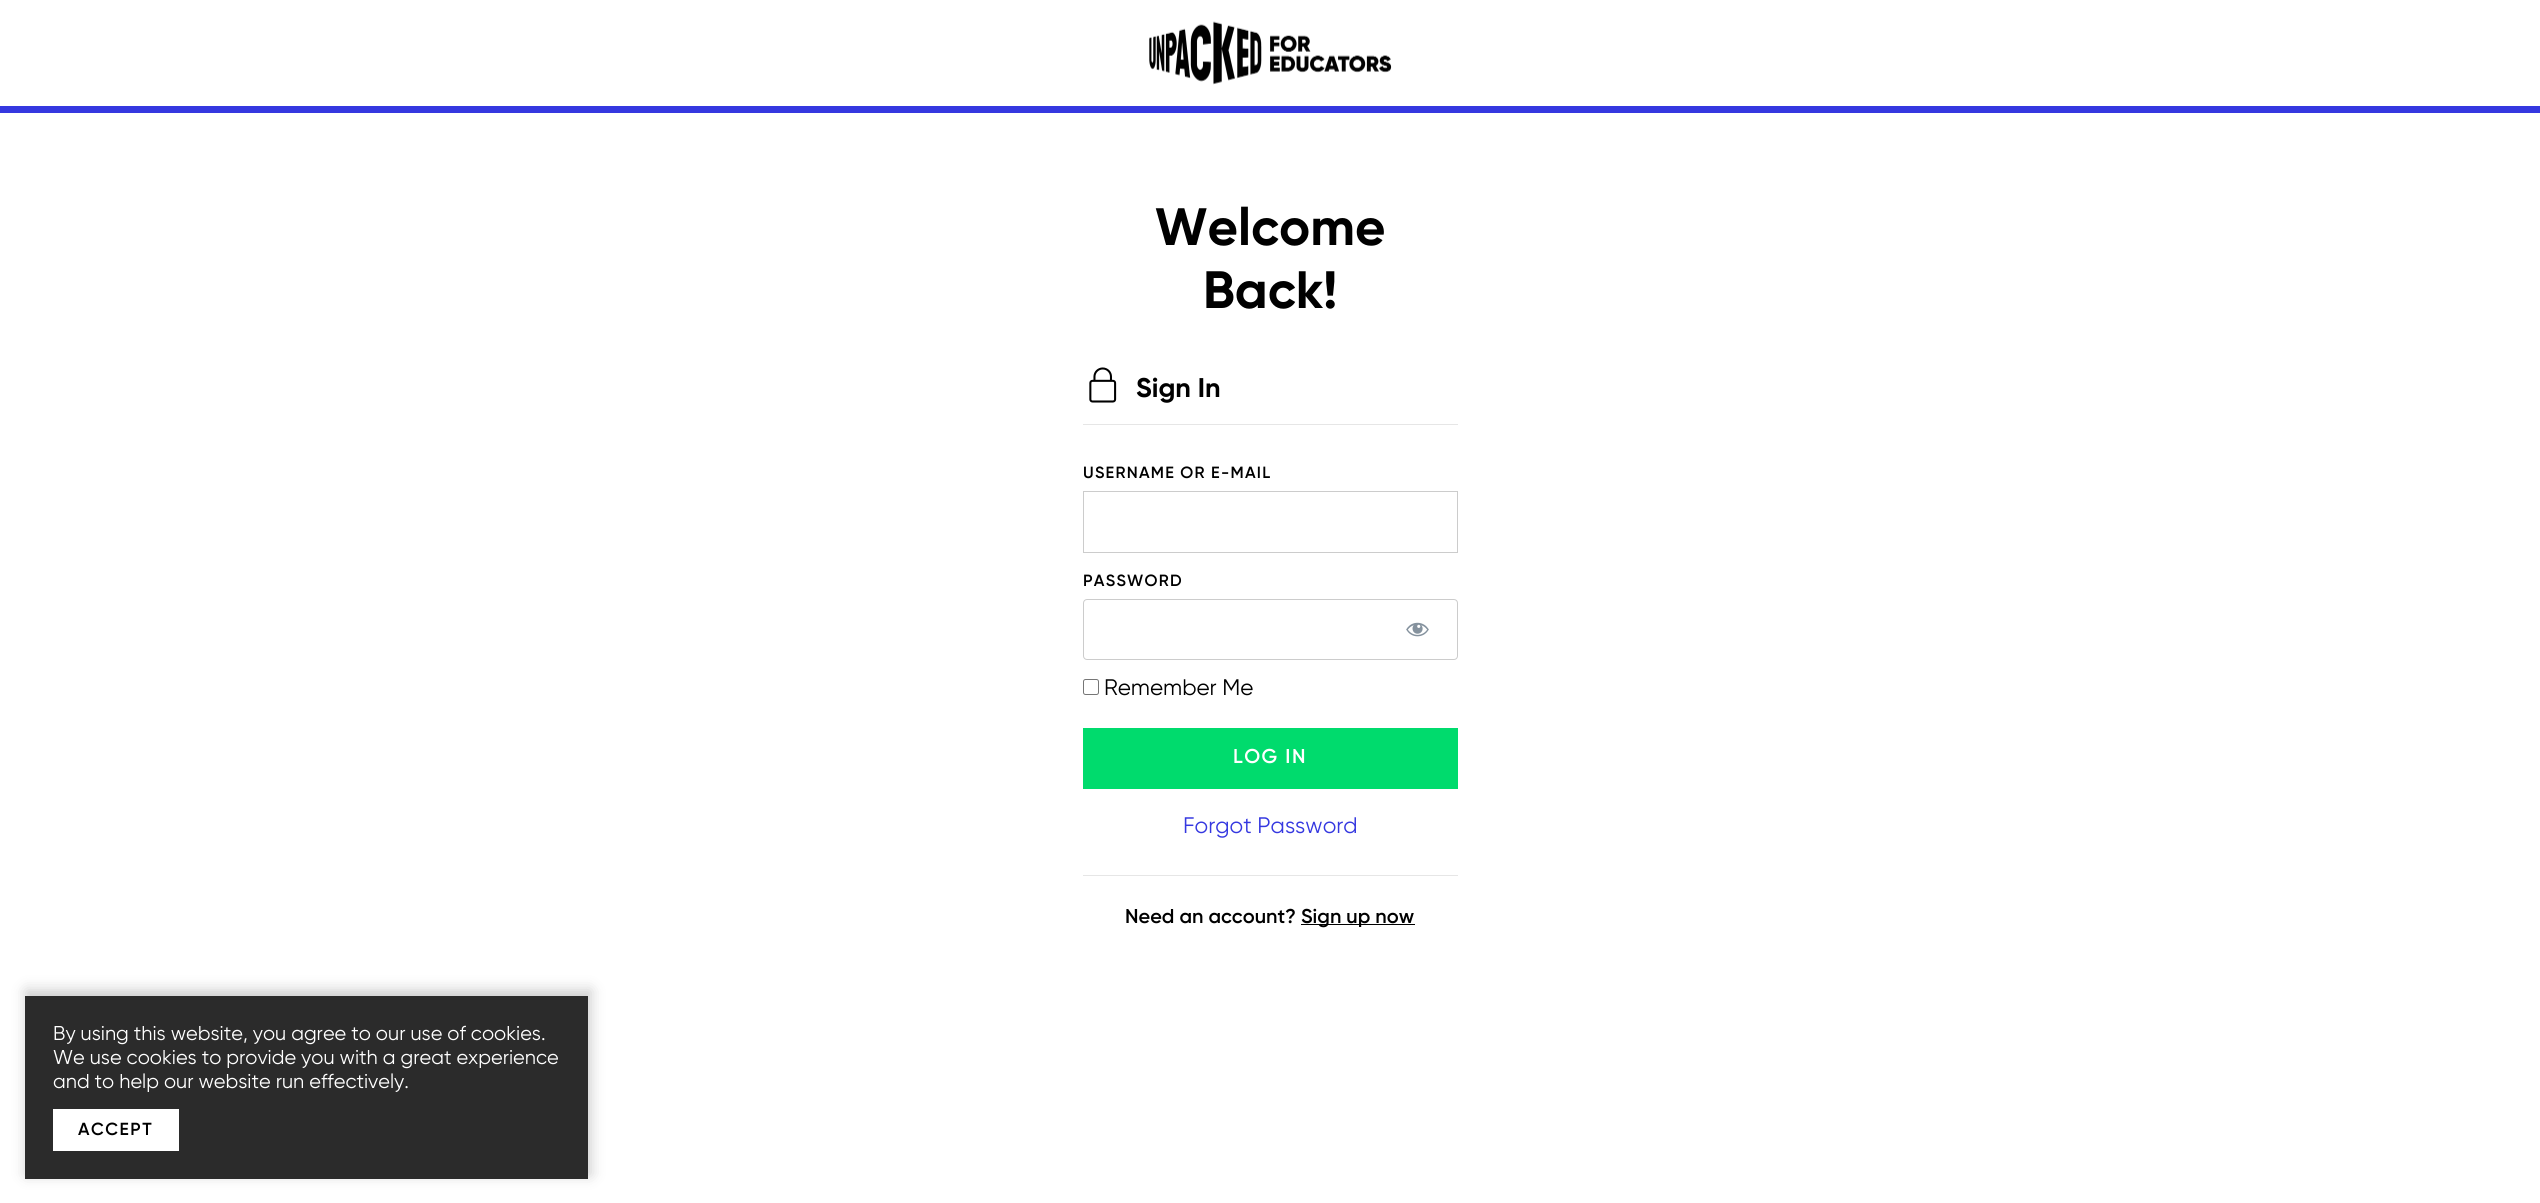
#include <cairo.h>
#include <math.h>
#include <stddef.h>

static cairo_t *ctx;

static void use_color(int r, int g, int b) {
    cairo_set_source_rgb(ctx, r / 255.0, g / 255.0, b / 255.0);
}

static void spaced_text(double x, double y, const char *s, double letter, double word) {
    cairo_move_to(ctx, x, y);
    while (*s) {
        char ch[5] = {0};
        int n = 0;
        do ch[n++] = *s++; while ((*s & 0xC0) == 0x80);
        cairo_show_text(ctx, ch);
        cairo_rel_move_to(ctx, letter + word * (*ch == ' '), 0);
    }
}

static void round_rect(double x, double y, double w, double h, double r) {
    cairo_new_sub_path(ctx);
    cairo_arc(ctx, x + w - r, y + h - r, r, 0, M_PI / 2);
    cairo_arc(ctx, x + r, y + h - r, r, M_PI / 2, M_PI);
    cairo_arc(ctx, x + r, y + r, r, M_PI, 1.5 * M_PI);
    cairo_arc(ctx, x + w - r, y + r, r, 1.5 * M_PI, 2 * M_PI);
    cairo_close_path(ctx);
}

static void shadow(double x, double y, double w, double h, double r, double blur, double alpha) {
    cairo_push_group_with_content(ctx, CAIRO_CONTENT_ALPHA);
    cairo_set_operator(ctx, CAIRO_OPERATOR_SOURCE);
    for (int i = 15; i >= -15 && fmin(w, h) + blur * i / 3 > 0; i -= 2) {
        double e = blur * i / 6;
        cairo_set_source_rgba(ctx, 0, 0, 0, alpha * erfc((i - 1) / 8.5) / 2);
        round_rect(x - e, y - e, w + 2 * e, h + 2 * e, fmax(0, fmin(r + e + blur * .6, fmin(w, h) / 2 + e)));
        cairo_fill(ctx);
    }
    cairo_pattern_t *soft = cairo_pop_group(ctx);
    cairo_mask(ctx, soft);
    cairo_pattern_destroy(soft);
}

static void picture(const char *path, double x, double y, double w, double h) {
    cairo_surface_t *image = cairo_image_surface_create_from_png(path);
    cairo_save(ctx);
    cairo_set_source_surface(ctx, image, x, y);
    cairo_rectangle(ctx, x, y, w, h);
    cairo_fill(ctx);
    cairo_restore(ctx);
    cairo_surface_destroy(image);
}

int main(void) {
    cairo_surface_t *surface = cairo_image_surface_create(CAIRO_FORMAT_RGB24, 2540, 1203);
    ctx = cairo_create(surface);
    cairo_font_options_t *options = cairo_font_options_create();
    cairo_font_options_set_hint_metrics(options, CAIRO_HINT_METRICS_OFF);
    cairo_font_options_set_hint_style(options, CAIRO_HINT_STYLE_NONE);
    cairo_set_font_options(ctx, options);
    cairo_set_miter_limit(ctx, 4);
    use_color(255, 255, 255);
    cairo_paint(ctx);
    use_color(53, 56, 224);
    cairo_rectangle(ctx, 0, 106, 2540, 7);
    cairo_fill(ctx);
    picture("img1.png", 1149, 21, 243, 64);
    cairo_select_font_face(ctx, "Gilroy", CAIRO_FONT_SLANT_NORMAL, CAIRO_FONT_WEIGHT_NORMAL);
    cairo_set_font_size(ctx, 52.5);
    use_color(0, 0, 0);
    cairo_move_to(ctx, 1155, 245);
    cairo_show_text(ctx, "Welcome");
    cairo_move_to(ctx, 1203, 308);
    cairo_show_text(ctx, "Back!");
    picture("img2.png", 1089, 367, 28, 36);
    cairo_set_font_size(ctx, 27);
    cairo_move_to(ctx, 1136, 397);
    cairo_show_text(ctx, "Sign In");
    use_color(230, 230, 230);
    cairo_rectangle(ctx, 1083, 424, 375, 1);
    cairo_fill(ctx);
    cairo_select_font_face(ctx, "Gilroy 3", CAIRO_FONT_SLANT_NORMAL, CAIRO_FONT_WEIGHT_NORMAL);
    cairo_set_font_size(ctx, 16.25);
    use_color(0, 0, 0);
    spaced_text(1083, 478, "USERNAME OR E-MAIL", 1.25, 0);
    cairo_rectangle(ctx, 1083.5, 491.5, 374, 61);
    use_color(204, 204, 204);
    cairo_set_line_width(ctx, 1);
    cairo_stroke(ctx);
    use_color(0, 0, 0);
    spaced_text(1083, 586, "PASSWORD", 1.25, 0);
    round_rect(1083.5, 599.5, 374, 60, 3.5);
    use_color(204, 204, 204);
    cairo_stroke(ctx);
    picture("img3.png", 1406, 622, 23, 15);
    round_rect(1083.5, 679.5, 15, 15, 2);
    use_color(118, 118, 118);
    cairo_stroke(ctx);
    cairo_select_font_face(ctx, "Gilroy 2", CAIRO_FONT_SLANT_NORMAL, CAIRO_FONT_WEIGHT_NORMAL);
    cairo_set_font_size(ctx, 22.5);
    use_color(0, 0, 0);
    cairo_move_to(ctx, 1104, 695);
    cairo_show_text(ctx, "Remember Me");
    use_color(0, 219, 109);
    cairo_rectangle(ctx, 1083, 728, 375, 61);
    cairo_fill(ctx);
    cairo_select_font_face(ctx, "Gilroy 3", CAIRO_FONT_SLANT_NORMAL, CAIRO_FONT_WEIGHT_NORMAL);
    cairo_set_font_size(ctx, 20);
    use_color(255, 255, 255);
    spaced_text(1233, 763, "LOG IN", 1.5, 0);
    cairo_select_font_face(ctx, "Gilroy 2", CAIRO_FONT_SLANT_NORMAL, CAIRO_FONT_WEIGHT_NORMAL);
    cairo_set_font_size(ctx, 22.5);
    use_color(53, 56, 224);
    cairo_move_to(ctx, 1183, 833);
    cairo_show_text(ctx, "Forgot Password");
    use_color(230, 230, 230);
    cairo_rectangle(ctx, 1083, 875, 375, 1);
    cairo_fill(ctx);
    cairo_select_font_face(ctx, "Gilroy 3", CAIRO_FONT_SLANT_NORMAL, CAIRO_FONT_WEIGHT_NORMAL);
    cairo_set_font_size(ctx, 20);
    use_color(0, 0, 0);
    cairo_move_to(ctx, 1125, 923);
    cairo_show_text(ctx, "Need an account?");
    cairo_rectangle(ctx, 1301, 924, 114, 1);
    cairo_fill(ctx);
    cairo_move_to(ctx, 1301, 923);
    cairo_show_text(ctx, "Sign up now");
    cairo_save(ctx);
    cairo_set_fill_rule(ctx, CAIRO_FILL_RULE_EVEN_ODD);
    cairo_new_path(ctx);
    cairo_move_to(ctx, 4, 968);
    cairo_line_to(ctx, 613, 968);
    cairo_line_to(ctx, 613, 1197);
    cairo_line_to(ctx, 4, 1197);
    cairo_close_path(ctx);
    cairo_move_to(ctx, 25, 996);
    cairo_line_to(ctx, 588, 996);
    cairo_line_to(ctx, 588, 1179);
    cairo_line_to(ctx, 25, 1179);
    cairo_close_path(ctx);
    cairo_clip(ctx);
    use_color(0, 0, 0);
    shadow(26, 990, 565, 185, 0, 7, 0.2);
    cairo_restore(ctx);
    cairo_set_source_rgba(ctx, 0, 0, 0, 0.83);
    cairo_rectangle(ctx, 25, 996, 563, 183);
    cairo_fill(ctx);
    cairo_select_font_face(ctx, "Gilroy 2", CAIRO_FONT_SLANT_NORMAL, CAIRO_FONT_WEIGHT_NORMAL);
    use_color(255, 255, 255);
    cairo_move_to(ctx, 53, 1040);
    cairo_show_text(ctx, "By using this website, you agree to our use of cookies.");
    cairo_move_to(ctx, 53, 1064);
    cairo_show_text(ctx, "We use cookies to provide you with a great experience");
    cairo_move_to(ctx, 53, 1088);
    cairo_show_text(ctx, "and to help our website run effectively.");
    cairo_rectangle(ctx, 53, 1109, 126, 42);
    cairo_fill(ctx);
    cairo_select_font_face(ctx, "Gilroy 3", CAIRO_FONT_SLANT_NORMAL, CAIRO_FONT_WEIGHT_NORMAL);
    cairo_set_font_size(ctx, 17.5);
    use_color(0, 0, 0);
    spaced_text(78, 1135, "ACCEPT", 1.5, 0);
    cairo_surface_write_to_png(surface, "result.png");
    cairo_font_options_destroy(options);
    cairo_destroy(ctx);
    cairo_surface_destroy(surface);
    return 0;
}
